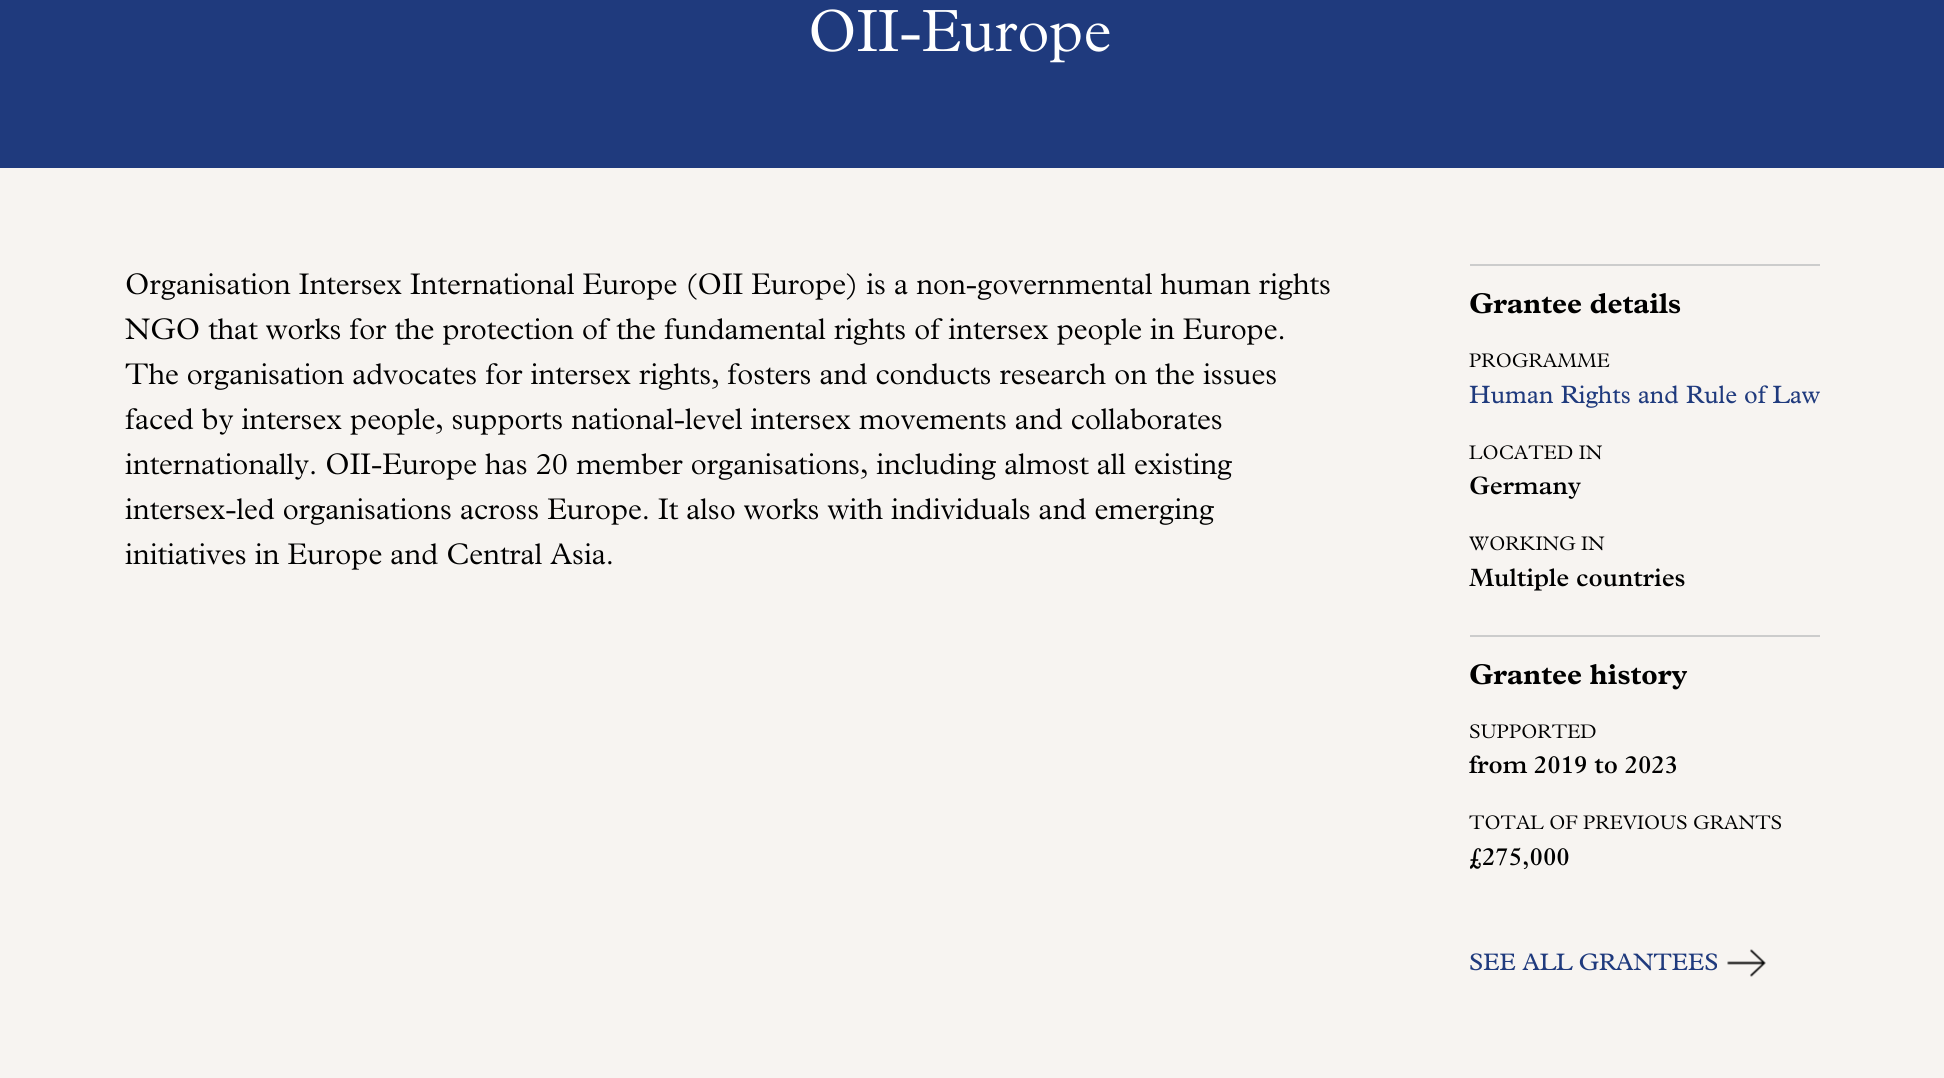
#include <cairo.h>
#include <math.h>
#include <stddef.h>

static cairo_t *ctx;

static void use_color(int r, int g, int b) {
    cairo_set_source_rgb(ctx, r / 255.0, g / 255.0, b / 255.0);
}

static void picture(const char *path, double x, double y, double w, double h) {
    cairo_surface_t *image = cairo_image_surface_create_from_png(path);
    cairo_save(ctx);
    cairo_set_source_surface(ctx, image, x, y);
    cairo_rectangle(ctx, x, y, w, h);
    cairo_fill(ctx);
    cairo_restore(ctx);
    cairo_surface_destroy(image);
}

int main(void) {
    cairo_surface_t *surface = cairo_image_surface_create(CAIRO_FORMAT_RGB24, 1944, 1078);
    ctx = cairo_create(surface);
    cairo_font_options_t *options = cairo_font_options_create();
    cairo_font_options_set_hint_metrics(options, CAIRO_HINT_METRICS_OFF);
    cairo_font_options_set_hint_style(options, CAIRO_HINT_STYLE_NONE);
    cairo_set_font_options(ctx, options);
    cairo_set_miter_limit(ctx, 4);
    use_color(247, 244, 241);
    cairo_paint(ctx);
    use_color(31, 58, 125);
    cairo_rectangle(ctx, 0, 0, 1944, 168);
    cairo_fill(ctx);
    cairo_select_font_face(ctx, "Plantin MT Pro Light", CAIRO_FONT_SLANT_NORMAL, CAIRO_FONT_WEIGHT_NORMAL);
    cairo_set_font_size(ctx, 60);
    use_color(255, 255, 255);
    cairo_move_to(ctx, 808, 51);
    cairo_show_text(ctx, "OII-Europe");
    cairo_set_font_size(ctx, 30);
    use_color(0, 0, 0);
    cairo_move_to(ctx, 125, 294);
    cairo_show_text(ctx, "Organisation Intersex International Europe (OII Europe) is a non-governmental human rights");
    cairo_move_to(ctx, 125, 339);
    cairo_show_text(ctx, "NGO that works for the protection of the fundamental rights of intersex people in Europe.");
    cairo_move_to(ctx, 125, 384);
    cairo_show_text(ctx, "The organisation advocates for intersex rights, fosters and conducts research on the issues");
    cairo_move_to(ctx, 125, 429);
    cairo_show_text(ctx, "faced by intersex people, supports national-level intersex movements and collaborates");
    cairo_move_to(ctx, 125, 474);
    cairo_show_text(ctx, "internationally. OII-Europe has 20 member organisations, including almost all existing");
    cairo_move_to(ctx, 125, 519);
    cairo_show_text(ctx, "intersex-led organisations across Europe. It also works with individuals and emerging");
    cairo_move_to(ctx, 125, 564);
    cairo_show_text(ctx, "initiatives in Europe and Central Asia.");
    use_color(204, 204, 204);
    cairo_rectangle(ctx, 1470, 264, 350, 2);
    cairo_fill(ctx);
    cairo_select_font_face(ctx, "Plantin MT Pro", CAIRO_FONT_SLANT_NORMAL, CAIRO_FONT_WEIGHT_BOLD);
    cairo_set_font_size(ctx, 28.75);
    use_color(0, 0, 0);
    cairo_move_to(ctx, 1469, 313);
    cairo_show_text(ctx, "Grantee details");
    cairo_select_font_face(ctx, "Plantin MT Pro Light", CAIRO_FONT_SLANT_NORMAL, CAIRO_FONT_WEIGHT_NORMAL);
    cairo_set_font_size(ctx, 19.75);
    cairo_move_to(ctx, 1469, 367);
    cairo_show_text(ctx, "PROGRAMME");
    cairo_select_font_face(ctx, "Plantin MT Pro", CAIRO_FONT_SLANT_NORMAL, CAIRO_FONT_WEIGHT_NORMAL);
    cairo_set_font_size(ctx, 25.25);
    use_color(31, 58, 125);
    cairo_move_to(ctx, 1469, 403);
    cairo_show_text(ctx, "Human Rights and Rule of Law");
    cairo_select_font_face(ctx, "Plantin MT Pro Light", CAIRO_FONT_SLANT_NORMAL, CAIRO_FONT_WEIGHT_NORMAL);
    cairo_set_font_size(ctx, 19.75);
    use_color(0, 0, 0);
    cairo_move_to(ctx, 1469, 459);
    cairo_show_text(ctx, "LOCATED IN");
    cairo_select_font_face(ctx, "Plantin MT Pro SemiBold", CAIRO_FONT_SLANT_NORMAL, CAIRO_FONT_WEIGHT_NORMAL);
    cairo_set_font_size(ctx, 25.25);
    cairo_move_to(ctx, 1469, 494);
    cairo_show_text(ctx, "Germany");
    cairo_select_font_face(ctx, "Plantin MT Pro Light", CAIRO_FONT_SLANT_NORMAL, CAIRO_FONT_WEIGHT_NORMAL);
    cairo_set_font_size(ctx, 19.75);
    cairo_move_to(ctx, 1469, 550);
    cairo_show_text(ctx, "WORKING IN");
    cairo_select_font_face(ctx, "Plantin MT Pro SemiBold", CAIRO_FONT_SLANT_NORMAL, CAIRO_FONT_WEIGHT_NORMAL);
    cairo_set_font_size(ctx, 25.25);
    cairo_move_to(ctx, 1469, 586);
    cairo_show_text(ctx, "Multiple countries");
    use_color(204, 204, 204);
    cairo_rectangle(ctx, 1470, 635, 350, 2);
    cairo_fill(ctx);
    cairo_select_font_face(ctx, "Plantin MT Pro", CAIRO_FONT_SLANT_NORMAL, CAIRO_FONT_WEIGHT_BOLD);
    cairo_set_font_size(ctx, 28.75);
    use_color(0, 0, 0);
    cairo_move_to(ctx, 1469, 684);
    cairo_show_text(ctx, "Grantee history");
    cairo_select_font_face(ctx, "Plantin MT Pro Light", CAIRO_FONT_SLANT_NORMAL, CAIRO_FONT_WEIGHT_NORMAL);
    cairo_set_font_size(ctx, 19.75);
    cairo_move_to(ctx, 1469, 738);
    cairo_show_text(ctx, "SUPPORTED");
    cairo_select_font_face(ctx, "Plantin MT Pro SemiBold", CAIRO_FONT_SLANT_NORMAL, CAIRO_FONT_WEIGHT_NORMAL);
    cairo_set_font_size(ctx, 25.25);
    cairo_move_to(ctx, 1469, 773);
    cairo_show_text(ctx, "from 2019 to 2023");
    cairo_select_font_face(ctx, "Plantin MT Pro Light", CAIRO_FONT_SLANT_NORMAL, CAIRO_FONT_WEIGHT_NORMAL);
    cairo_set_font_size(ctx, 19.75);
    cairo_move_to(ctx, 1469, 829);
    cairo_show_text(ctx, "TOTAL OF PREVIOUS GRANTS");
    cairo_select_font_face(ctx, "Plantin MT Pro SemiBold", CAIRO_FONT_SLANT_NORMAL, CAIRO_FONT_WEIGHT_NORMAL);
    cairo_set_font_size(ctx, 25.25);
    cairo_move_to(ctx, 1469, 865);
    cairo_show_text(ctx, "£275,000");
    cairo_select_font_face(ctx, "Plantin MT Pro", CAIRO_FONT_SLANT_NORMAL, CAIRO_FONT_WEIGHT_NORMAL);
    cairo_set_font_size(ctx, 24);
    use_color(31, 58, 125);
    cairo_move_to(ctx, 1469, 970);
    cairo_show_text(ctx, "SEE ALL GRANTEES");
    picture("img1.png", 1727, 949, 39, 28);
    cairo_surface_write_to_png(surface, "result.png");
    cairo_font_options_destroy(options);
    cairo_destroy(ctx);
    cairo_surface_destroy(surface);
    return 0;
}
